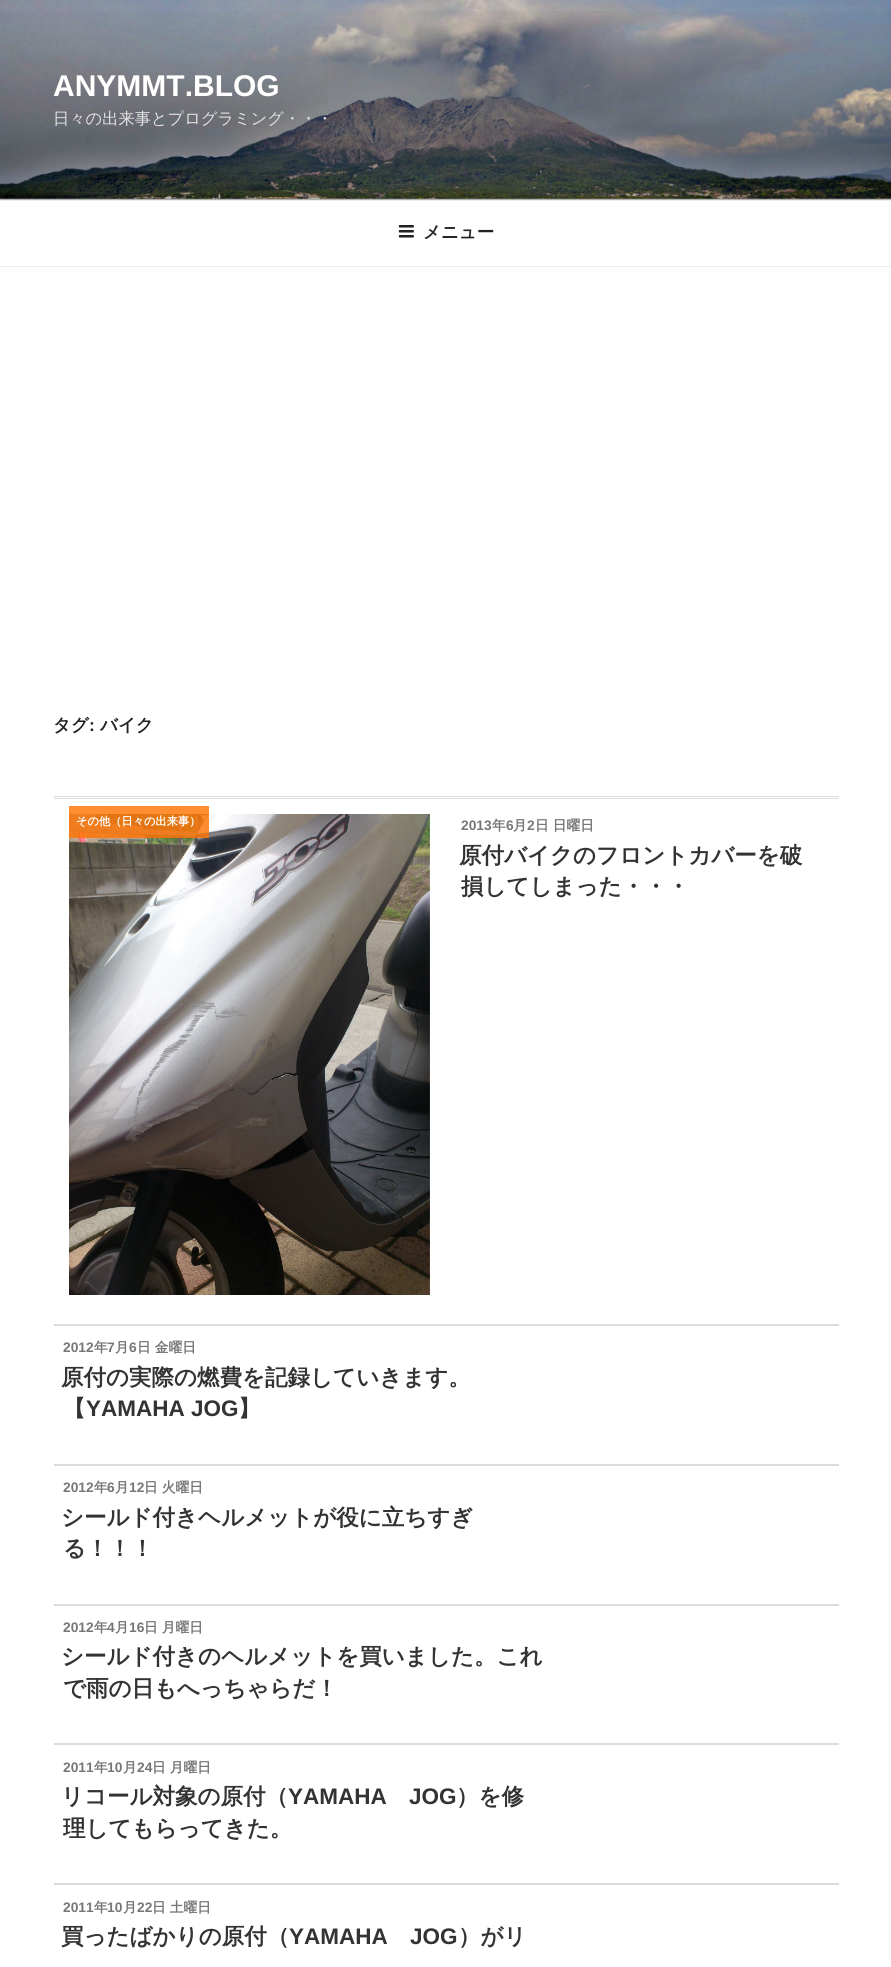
#include <cairo.h>
#include <math.h>
#include <stddef.h>

static cairo_t *ctx;

static void use_color(int r, int g, int b) {
    cairo_set_source_rgb(ctx, r / 255.0, g / 255.0, b / 255.0);
}

static void picture(const char *path, double x, double y, double w, double h) {
    cairo_surface_t *image = cairo_image_surface_create_from_png(path);
    cairo_save(ctx);
    cairo_set_source_surface(ctx, image, x, y);
    cairo_rectangle(ctx, x, y, w, h);
    cairo_fill(ctx);
    cairo_restore(ctx);
    cairo_surface_destroy(image);
}

int main(void) {
    cairo_surface_t *surface = cairo_image_surface_create(CAIRO_FORMAT_RGB24, 891, 1967);
    ctx = cairo_create(surface);
    cairo_font_options_t *options = cairo_font_options_create();
    cairo_font_options_set_hint_metrics(options, CAIRO_HINT_METRICS_OFF);
    cairo_font_options_set_hint_style(options, CAIRO_HINT_STYLE_NONE);
    cairo_set_font_options(ctx, options);
    cairo_set_miter_limit(ctx, 4);
    cairo_pattern_t *gradient;
    use_color(255, 255, 255);
    cairo_paint(ctx);
    use_color(250, 250, 250);
    cairo_rectangle(ctx, 0, 198, 891, 2);
    cairo_fill(ctx);
    picture("img1.png", 0, 0, 891, 199);
    gradient = cairo_pattern_create_linear(446, 0, 446, 200);
    cairo_pattern_add_color_stop_rgba(gradient, 0, 0, 0, 0, 0);
    cairo_pattern_add_color_stop_rgba(gradient, 0.75, 0, 0, 0, 0.3);
    cairo_pattern_add_color_stop_rgba(gradient, 1, 0, 0, 0, 0.3);
    cairo_set_source(ctx, gradient);
    cairo_pattern_destroy(gradient);
    cairo_rectangle(ctx, 0, 11, 891, 189);
    cairo_fill(ctx);
    cairo_select_font_face(ctx, "Liberation Sans", CAIRO_FONT_SLANT_NORMAL, CAIRO_FONT_WEIGHT_BOLD);
    cairo_set_font_size(ctx, 30);
    use_color(255, 255, 255);
    cairo_move_to(ctx, 53, 96);
    cairo_show_text(ctx, "ANYMMT.BLOG");
    cairo_select_font_face(ctx, "WenQuanYi Zen Hei Medium", CAIRO_FONT_SLANT_NORMAL, CAIRO_FONT_WEIGHT_NORMAL);
    cairo_set_font_size(ctx, 16.25);
    use_color(225, 226, 227);
    cairo_move_to(ctx, 53, 124);
    cairo_show_text(ctx, "日々の出来事とプログラミング・・・");
    use_color(238, 238, 238);
    cairo_rectangle(ctx, 0, 200, 891, 1);
    cairo_fill(ctx);
    cairo_rectangle(ctx, 0, 266, 891, 1);
    cairo_fill(ctx);
    picture("img2.png", 398, 225, 16, 13);
    cairo_select_font_face(ctx, "WenQuanYi Zen Hei", CAIRO_FONT_SLANT_NORMAL, CAIRO_FONT_WEIGHT_BOLD);
    cairo_set_font_size(ctx, 17.5);
    use_color(34, 34, 34);
    cairo_move_to(ctx, 423, 238);
    cairo_show_text(ctx, "メニュー");
    cairo_move_to(ctx, 53, 731);
    cairo_show_text(ctx, "タグ");
    cairo_select_font_face(ctx, "Liberation Sans", CAIRO_FONT_SLANT_NORMAL, CAIRO_FONT_WEIGHT_BOLD);
    cairo_move_to(ctx, 89, 731);
    cairo_show_text(ctx, ":");
    cairo_select_font_face(ctx, "WenQuanYi Zen Hei", CAIRO_FONT_SLANT_NORMAL, CAIRO_FONT_WEIGHT_BOLD);
    cairo_move_to(ctx, 100, 731);
    cairo_show_text(ctx, "バイク");
    use_color(220, 220, 220);
    cairo_rectangle(ctx, 54, 796, 785, 1);
    cairo_fill(ctx);
    cairo_rectangle(ctx, 54, 798, 785, 1);
    cairo_fill(ctx);
    cairo_rectangle(ctx, 54, 1324, 785, 2);
    cairo_fill(ctx);
    picture("img3.png", 69, 814, 361, 481);
    cairo_set_source_rgba(ctx, 1, 0.447, 0, 0.8);
    cairo_rectangle(ctx, 69, 806, 140, 32);
    cairo_fill(ctx);
    cairo_set_font_size(ctx, 11.25);
    use_color(255, 255, 255);
    cairo_move_to(ctx, 76, 825);
    cairo_show_text(ctx, "その他（日々の出来事）");
    cairo_select_font_face(ctx, "Liberation Sans", CAIRO_FONT_SLANT_NORMAL, CAIRO_FONT_WEIGHT_BOLD);
    cairo_set_font_size(ctx, 13.75);
    use_color(118, 118, 118);
    cairo_move_to(ctx, 461, 830);
    cairo_show_text(ctx, "2013");
    cairo_select_font_face(ctx, "WenQuanYi Zen Hei", CAIRO_FONT_SLANT_NORMAL, CAIRO_FONT_WEIGHT_BOLD);
    cairo_move_to(ctx, 492, 830);
    cairo_show_text(ctx, "年");
    cairo_select_font_face(ctx, "Liberation Sans", CAIRO_FONT_SLANT_NORMAL, CAIRO_FONT_WEIGHT_BOLD);
    cairo_move_to(ctx, 506, 830);
    cairo_show_text(ctx, "6");
    cairo_select_font_face(ctx, "WenQuanYi Zen Hei", CAIRO_FONT_SLANT_NORMAL, CAIRO_FONT_WEIGHT_BOLD);
    cairo_move_to(ctx, 513, 830);
    cairo_show_text(ctx, "月");
    cairo_select_font_face(ctx, "Liberation Sans", CAIRO_FONT_SLANT_NORMAL, CAIRO_FONT_WEIGHT_BOLD);
    cairo_move_to(ctx, 527, 830);
    cairo_show_text(ctx, "2");
    cairo_select_font_face(ctx, "WenQuanYi Zen Hei", CAIRO_FONT_SLANT_NORMAL, CAIRO_FONT_WEIGHT_BOLD);
    cairo_move_to(ctx, 535, 830);
    cairo_show_text(ctx, "日 日曜日");
    cairo_set_font_size(ctx, 22.5);
    use_color(51, 51, 51);
    cairo_move_to(ctx, 459, 863);
    cairo_show_text(ctx, "原付バイクのフロントカバーを破");
    cairo_move_to(ctx, 461, 894);
    cairo_show_text(ctx, "損してしまった・・・");
    use_color(220, 220, 220);
    cairo_rectangle(ctx, 54, 1464, 785, 2);
    cairo_fill(ctx);
    cairo_select_font_face(ctx, "Liberation Sans", CAIRO_FONT_SLANT_NORMAL, CAIRO_FONT_WEIGHT_BOLD);
    cairo_set_font_size(ctx, 13.75);
    use_color(118, 118, 118);
    cairo_move_to(ctx, 63, 1352);
    cairo_show_text(ctx, "2012");
    cairo_select_font_face(ctx, "WenQuanYi Zen Hei", CAIRO_FONT_SLANT_NORMAL, CAIRO_FONT_WEIGHT_BOLD);
    cairo_move_to(ctx, 94, 1352);
    cairo_show_text(ctx, "年");
    cairo_select_font_face(ctx, "Liberation Sans", CAIRO_FONT_SLANT_NORMAL, CAIRO_FONT_WEIGHT_BOLD);
    cairo_move_to(ctx, 107, 1352);
    cairo_show_text(ctx, "7");
    cairo_select_font_face(ctx, "WenQuanYi Zen Hei", CAIRO_FONT_SLANT_NORMAL, CAIRO_FONT_WEIGHT_BOLD);
    cairo_move_to(ctx, 115, 1352);
    cairo_show_text(ctx, "月");
    cairo_select_font_face(ctx, "Liberation Sans", CAIRO_FONT_SLANT_NORMAL, CAIRO_FONT_WEIGHT_BOLD);
    cairo_move_to(ctx, 129, 1352);
    cairo_show_text(ctx, "6");
    cairo_select_font_face(ctx, "WenQuanYi Zen Hei", CAIRO_FONT_SLANT_NORMAL, CAIRO_FONT_WEIGHT_BOLD);
    cairo_move_to(ctx, 137, 1352);
    cairo_show_text(ctx, "日 金曜日");
    cairo_set_font_size(ctx, 22.5);
    use_color(51, 51, 51);
    cairo_move_to(ctx, 61, 1385);
    cairo_show_text(ctx, "原付の実際の燃費を記録していきます。");
    cairo_move_to(ctx, 63, 1416);
    cairo_show_text(ctx, "【");
    cairo_select_font_face(ctx, "Liberation Sans", CAIRO_FONT_SLANT_NORMAL, CAIRO_FONT_WEIGHT_BOLD);
    cairo_move_to(ctx, 86, 1416);
    cairo_show_text(ctx, "YAMAHA JOG");
    cairo_select_font_face(ctx, "WenQuanYi Zen Hei", CAIRO_FONT_SLANT_NORMAL, CAIRO_FONT_WEIGHT_BOLD);
    cairo_move_to(ctx, 238, 1416);
    cairo_show_text(ctx, "】");
    use_color(220, 220, 220);
    cairo_rectangle(ctx, 54, 1604, 785, 2);
    cairo_fill(ctx);
    cairo_select_font_face(ctx, "Liberation Sans", CAIRO_FONT_SLANT_NORMAL, CAIRO_FONT_WEIGHT_BOLD);
    cairo_set_font_size(ctx, 13.75);
    use_color(118, 118, 118);
    cairo_move_to(ctx, 63, 1492);
    cairo_show_text(ctx, "2012");
    cairo_select_font_face(ctx, "WenQuanYi Zen Hei", CAIRO_FONT_SLANT_NORMAL, CAIRO_FONT_WEIGHT_BOLD);
    cairo_move_to(ctx, 94, 1492);
    cairo_show_text(ctx, "年");
    cairo_select_font_face(ctx, "Liberation Sans", CAIRO_FONT_SLANT_NORMAL, CAIRO_FONT_WEIGHT_BOLD);
    cairo_move_to(ctx, 107, 1492);
    cairo_show_text(ctx, "6");
    cairo_select_font_face(ctx, "WenQuanYi Zen Hei", CAIRO_FONT_SLANT_NORMAL, CAIRO_FONT_WEIGHT_BOLD);
    cairo_move_to(ctx, 115, 1492);
    cairo_show_text(ctx, "月");
    cairo_select_font_face(ctx, "Liberation Sans", CAIRO_FONT_SLANT_NORMAL, CAIRO_FONT_WEIGHT_BOLD);
    cairo_move_to(ctx, 129, 1492);
    cairo_show_text(ctx, "12");
    cairo_select_font_face(ctx, "WenQuanYi Zen Hei", CAIRO_FONT_SLANT_NORMAL, CAIRO_FONT_WEIGHT_BOLD);
    cairo_move_to(ctx, 144, 1492);
    cairo_show_text(ctx, "日 火曜日");
    cairo_set_font_size(ctx, 22.5);
    use_color(51, 51, 51);
    cairo_move_to(ctx, 61, 1525);
    cairo_show_text(ctx, "シールド付きヘルメットが役に立ちすぎ");
    cairo_move_to(ctx, 63, 1556);
    cairo_show_text(ctx, "る！！！");
    use_color(220, 220, 220);
    cairo_rectangle(ctx, 54, 1743, 785, 2);
    cairo_fill(ctx);
    cairo_select_font_face(ctx, "Liberation Sans", CAIRO_FONT_SLANT_NORMAL, CAIRO_FONT_WEIGHT_BOLD);
    cairo_set_font_size(ctx, 13.75);
    use_color(118, 118, 118);
    cairo_move_to(ctx, 63, 1632);
    cairo_show_text(ctx, "2012");
    cairo_select_font_face(ctx, "WenQuanYi Zen Hei", CAIRO_FONT_SLANT_NORMAL, CAIRO_FONT_WEIGHT_BOLD);
    cairo_move_to(ctx, 94, 1632);
    cairo_show_text(ctx, "年");
    cairo_select_font_face(ctx, "Liberation Sans", CAIRO_FONT_SLANT_NORMAL, CAIRO_FONT_WEIGHT_BOLD);
    cairo_move_to(ctx, 107, 1632);
    cairo_show_text(ctx, "4");
    cairo_select_font_face(ctx, "WenQuanYi Zen Hei", CAIRO_FONT_SLANT_NORMAL, CAIRO_FONT_WEIGHT_BOLD);
    cairo_move_to(ctx, 115, 1632);
    cairo_show_text(ctx, "月");
    cairo_select_font_face(ctx, "Liberation Sans", CAIRO_FONT_SLANT_NORMAL, CAIRO_FONT_WEIGHT_BOLD);
    cairo_move_to(ctx, 129, 1632);
    cairo_show_text(ctx, "16");
    cairo_select_font_face(ctx, "WenQuanYi Zen Hei", CAIRO_FONT_SLANT_NORMAL, CAIRO_FONT_WEIGHT_BOLD);
    cairo_move_to(ctx, 144, 1632);
    cairo_show_text(ctx, "日 月曜日");
    cairo_set_font_size(ctx, 22.5);
    use_color(51, 51, 51);
    cairo_move_to(ctx, 61, 1664);
    cairo_show_text(ctx, "シールド付きのヘルメットを買いました。これ");
    cairo_move_to(ctx, 63, 1696);
    cairo_show_text(ctx, "で雨の日もへっちゃらだ！");
    use_color(220, 220, 220);
    cairo_rectangle(ctx, 54, 1883, 785, 2);
    cairo_fill(ctx);
    cairo_select_font_face(ctx, "Liberation Sans", CAIRO_FONT_SLANT_NORMAL, CAIRO_FONT_WEIGHT_BOLD);
    cairo_set_font_size(ctx, 13.75);
    use_color(118, 118, 118);
    cairo_move_to(ctx, 63, 1772);
    cairo_show_text(ctx, "2011");
    cairo_select_font_face(ctx, "WenQuanYi Zen Hei", CAIRO_FONT_SLANT_NORMAL, CAIRO_FONT_WEIGHT_BOLD);
    cairo_move_to(ctx, 94, 1772);
    cairo_show_text(ctx, "年");
    cairo_select_font_face(ctx, "Liberation Sans", CAIRO_FONT_SLANT_NORMAL, CAIRO_FONT_WEIGHT_BOLD);
    cairo_move_to(ctx, 107, 1772);
    cairo_show_text(ctx, "10");
    cairo_select_font_face(ctx, "WenQuanYi Zen Hei", CAIRO_FONT_SLANT_NORMAL, CAIRO_FONT_WEIGHT_BOLD);
    cairo_move_to(ctx, 123, 1772);
    cairo_show_text(ctx, "月");
    cairo_select_font_face(ctx, "Liberation Sans", CAIRO_FONT_SLANT_NORMAL, CAIRO_FONT_WEIGHT_BOLD);
    cairo_move_to(ctx, 137, 1772);
    cairo_show_text(ctx, "24");
    cairo_select_font_face(ctx, "WenQuanYi Zen Hei", CAIRO_FONT_SLANT_NORMAL, CAIRO_FONT_WEIGHT_BOLD);
    cairo_move_to(ctx, 152, 1772);
    cairo_show_text(ctx, "日 月曜日");
    cairo_set_font_size(ctx, 22.5);
    use_color(51, 51, 51);
    cairo_move_to(ctx, 61, 1804);
    cairo_show_text(ctx, "リコール対象の原付（");
    cairo_select_font_face(ctx, "Liberation Sans", CAIRO_FONT_SLANT_NORMAL, CAIRO_FONT_WEIGHT_BOLD);
    cairo_move_to(ctx, 288, 1804);
    cairo_show_text(ctx, "YAMAHA");
    cairo_move_to(ctx, 409, 1804);
    cairo_show_text(ctx, "JOG");
    cairo_select_font_face(ctx, "WenQuanYi Zen Hei", CAIRO_FONT_SLANT_NORMAL, CAIRO_FONT_WEIGHT_BOLD);
    cairo_move_to(ctx, 456, 1804);
    cairo_show_text(ctx, "）を修");
    cairo_move_to(ctx, 63, 1836);
    cairo_show_text(ctx, "理してもらってきた。");
    cairo_select_font_face(ctx, "Liberation Sans", CAIRO_FONT_SLANT_NORMAL, CAIRO_FONT_WEIGHT_BOLD);
    cairo_set_font_size(ctx, 13.75);
    use_color(118, 118, 118);
    cairo_move_to(ctx, 63, 1912);
    cairo_show_text(ctx, "2011");
    cairo_select_font_face(ctx, "WenQuanYi Zen Hei", CAIRO_FONT_SLANT_NORMAL, CAIRO_FONT_WEIGHT_BOLD);
    cairo_move_to(ctx, 94, 1912);
    cairo_show_text(ctx, "年");
    cairo_select_font_face(ctx, "Liberation Sans", CAIRO_FONT_SLANT_NORMAL, CAIRO_FONT_WEIGHT_BOLD);
    cairo_move_to(ctx, 107, 1912);
    cairo_show_text(ctx, "10");
    cairo_select_font_face(ctx, "WenQuanYi Zen Hei", CAIRO_FONT_SLANT_NORMAL, CAIRO_FONT_WEIGHT_BOLD);
    cairo_move_to(ctx, 123, 1912);
    cairo_show_text(ctx, "月");
    cairo_select_font_face(ctx, "Liberation Sans", CAIRO_FONT_SLANT_NORMAL, CAIRO_FONT_WEIGHT_BOLD);
    cairo_move_to(ctx, 137, 1912);
    cairo_show_text(ctx, "22");
    cairo_select_font_face(ctx, "WenQuanYi Zen Hei", CAIRO_FONT_SLANT_NORMAL, CAIRO_FONT_WEIGHT_BOLD);
    cairo_move_to(ctx, 152, 1912);
    cairo_show_text(ctx, "日 土曜日");
    cairo_set_font_size(ctx, 22.5);
    use_color(51, 51, 51);
    cairo_move_to(ctx, 61, 1944);
    cairo_show_text(ctx, "買ったばかりの原付（");
    cairo_select_font_face(ctx, "Liberation Sans", CAIRO_FONT_SLANT_NORMAL, CAIRO_FONT_WEIGHT_BOLD);
    cairo_move_to(ctx, 289, 1944);
    cairo_show_text(ctx, "YAMAHA");
    cairo_move_to(ctx, 410, 1944);
    cairo_show_text(ctx, "JOG");
    cairo_select_font_face(ctx, "WenQuanYi Zen Hei", CAIRO_FONT_SLANT_NORMAL, CAIRO_FONT_WEIGHT_BOLD);
    cairo_move_to(ctx, 458, 1944);
    cairo_show_text(ctx, "）がリ");
    cairo_surface_write_to_png(surface, "result.png");
    cairo_font_options_destroy(options);
    cairo_destroy(ctx);
    cairo_surface_destroy(surface);
    return 0;
}
